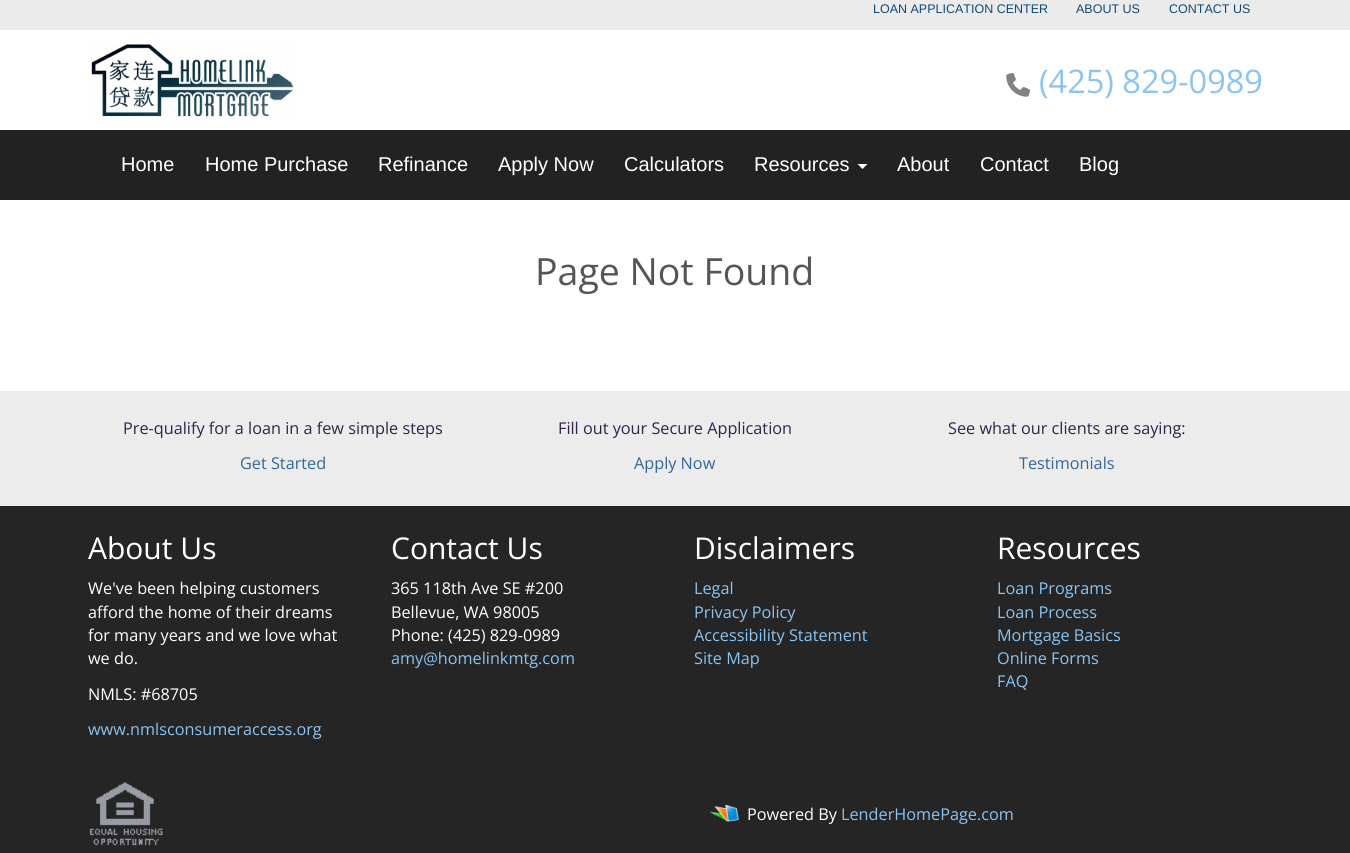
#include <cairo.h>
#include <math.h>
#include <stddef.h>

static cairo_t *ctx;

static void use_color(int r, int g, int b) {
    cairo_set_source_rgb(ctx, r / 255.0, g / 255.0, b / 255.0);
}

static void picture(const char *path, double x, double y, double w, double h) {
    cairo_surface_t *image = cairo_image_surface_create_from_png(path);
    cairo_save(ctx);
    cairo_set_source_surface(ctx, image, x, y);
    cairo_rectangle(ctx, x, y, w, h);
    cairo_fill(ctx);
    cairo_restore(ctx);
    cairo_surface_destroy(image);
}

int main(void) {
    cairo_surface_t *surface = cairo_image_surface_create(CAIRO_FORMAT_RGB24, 1350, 853);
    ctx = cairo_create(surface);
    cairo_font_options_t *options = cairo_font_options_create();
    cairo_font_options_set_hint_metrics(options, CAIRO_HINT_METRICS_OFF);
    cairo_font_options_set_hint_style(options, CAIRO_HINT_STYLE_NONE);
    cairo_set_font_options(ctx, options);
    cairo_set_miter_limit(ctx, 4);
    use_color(255, 255, 255);
    cairo_paint(ctx);
    use_color(235, 235, 235);
    cairo_rectangle(ctx, 0, 0, 1350, 30);
    cairo_fill(ctx);
    cairo_select_font_face(ctx, "Liberation Sans", CAIRO_FONT_SLANT_NORMAL, CAIRO_FONT_WEIGHT_NORMAL);
    cairo_set_font_size(ctx, 12.5);
    use_color(16, 73, 116);
    cairo_move_to(ctx, 873, 13);
    cairo_show_text(ctx, "LOAN APPLICATION CENTER");
    cairo_move_to(ctx, 1076, 13);
    cairo_show_text(ctx, "ABOUT US");
    cairo_move_to(ctx, 1169, 13);
    cairo_show_text(ctx, "CONTACT US");
    picture("img1.png", 91, 44, 203, 73);
    picture("img2.png", 1006, 73, 24, 24);
    cairo_select_font_face(ctx, "Open Sans", CAIRO_FONT_SLANT_NORMAL, CAIRO_FONT_WEIGHT_NORMAL);
    cairo_set_font_size(ctx, 32.5);
    use_color(138, 196, 242);
    cairo_move_to(ctx, 1039, 93);
    cairo_show_text(ctx, "(425) 829-0989");
    use_color(34, 34, 34);
    cairo_rectangle(ctx, 0, 130, 1350, 70);
    cairo_fill(ctx);
    cairo_select_font_face(ctx, "Liberation Sans", CAIRO_FONT_SLANT_NORMAL, CAIRO_FONT_WEIGHT_NORMAL);
    cairo_set_font_size(ctx, 20);
    use_color(255, 255, 255);
    cairo_move_to(ctx, 121, 171);
    cairo_show_text(ctx, "Home");
    cairo_move_to(ctx, 205, 171);
    cairo_show_text(ctx, "Home Purchase");
    cairo_move_to(ctx, 378, 171);
    cairo_show_text(ctx, "Refinance");
    cairo_move_to(ctx, 498, 171);
    cairo_show_text(ctx, "Apply Now");
    cairo_move_to(ctx, 624, 171);
    cairo_show_text(ctx, "Calculators");
    cairo_move_to(ctx, 754, 171);
    cairo_show_text(ctx, "Resources");
    cairo_new_path(ctx);
    cairo_move_to(ctx, 857.5, 164);
    cairo_line_to(ctx, 867.5, 164);
    cairo_line_to(ctx, 862.5, 169);
    cairo_close_path(ctx);
    cairo_fill(ctx);
    cairo_move_to(ctx, 897, 171);
    cairo_show_text(ctx, "About");
    cairo_move_to(ctx, 980, 171);
    cairo_show_text(ctx, "Contact");
    cairo_move_to(ctx, 1079, 171);
    cairo_show_text(ctx, "Blog");
    cairo_select_font_face(ctx, "Open Sans", CAIRO_FONT_SLANT_NORMAL, CAIRO_FONT_WEIGHT_NORMAL);
    cairo_set_font_size(ctx, 37.5);
    use_color(85, 85, 85);
    cairo_move_to(ctx, 535, 285);
    cairo_show_text(ctx, "Page Not Found");
    use_color(236, 236, 236);
    cairo_rectangle(ctx, 0, 391, 1350, 115);
    cairo_fill(ctx);
    cairo_set_font_size(ctx, 16.25);
    use_color(51, 34, 76);
    cairo_move_to(ctx, 123, 434);
    cairo_show_text(ctx, "Pre-qualify for a loan in a few simple steps");
    use_color(51, 102, 153);
    cairo_move_to(ctx, 240, 469);
    cairo_show_text(ctx, "Get Started");
    use_color(51, 34, 76);
    cairo_move_to(ctx, 558, 434);
    cairo_show_text(ctx, "Fill out your Secure Application");
    use_color(51, 102, 153);
    cairo_move_to(ctx, 634, 469);
    cairo_show_text(ctx, "Apply Now");
    use_color(51, 34, 76);
    cairo_move_to(ctx, 948, 434);
    cairo_show_text(ctx, "See what our clients are saying:");
    use_color(51, 102, 153);
    cairo_move_to(ctx, 1019, 469);
    cairo_show_text(ctx, "Testimonials");
    use_color(37, 37, 37);
    cairo_rectangle(ctx, 0, 506, 1350, 347);
    cairo_fill(ctx);
    cairo_set_font_size(ctx, 30);
    use_color(255, 255, 255);
    cairo_move_to(ctx, 88, 559);
    cairo_show_text(ctx, "About Us");
    cairo_set_font_size(ctx, 16.25);
    cairo_move_to(ctx, 88, 594);
    cairo_show_text(ctx, "We've been helping customers");
    cairo_move_to(ctx, 88, 618);
    cairo_show_text(ctx, "afford the home of their dreams");
    cairo_move_to(ctx, 88, 641);
    cairo_show_text(ctx, "for many years and we love what");
    cairo_move_to(ctx, 88, 664);
    cairo_show_text(ctx, "we do.");
    cairo_move_to(ctx, 88, 700);
    cairo_show_text(ctx, "NMLS: #68705");
    use_color(138, 196, 242);
    cairo_move_to(ctx, 88, 735);
    cairo_show_text(ctx, "www.nmlsconsumeraccess.org");
    cairo_set_font_size(ctx, 30);
    use_color(255, 255, 255);
    cairo_move_to(ctx, 391, 559);
    cairo_show_text(ctx, "Contact Us");
    cairo_set_font_size(ctx, 16.25);
    cairo_move_to(ctx, 391, 594);
    cairo_show_text(ctx, "365 118th Ave SE #200");
    cairo_move_to(ctx, 391, 618);
    cairo_show_text(ctx, "Bellevue, WA 98005");
    cairo_move_to(ctx, 391, 641);
    cairo_show_text(ctx, "Phone: (425) 829-0989");
    use_color(138, 196, 242);
    cairo_move_to(ctx, 391, 664);
    cairo_show_text(ctx, "amy@homelinkmtg.com");
    cairo_set_font_size(ctx, 30);
    use_color(255, 255, 255);
    cairo_move_to(ctx, 694, 559);
    cairo_show_text(ctx, "Disclaimers");
    cairo_set_font_size(ctx, 16.25);
    use_color(138, 196, 242);
    cairo_move_to(ctx, 694, 594);
    cairo_show_text(ctx, "Legal");
    cairo_move_to(ctx, 694, 618);
    cairo_show_text(ctx, "Privacy Policy");
    cairo_move_to(ctx, 694, 641);
    cairo_show_text(ctx, "Accessibility Statement");
    cairo_move_to(ctx, 694, 664);
    cairo_show_text(ctx, "Site Map");
    cairo_set_font_size(ctx, 30);
    use_color(255, 255, 255);
    cairo_move_to(ctx, 997, 559);
    cairo_show_text(ctx, "Resources");
    cairo_set_font_size(ctx, 16.25);
    use_color(138, 196, 242);
    cairo_move_to(ctx, 997, 594);
    cairo_show_text(ctx, "Loan Programs");
    cairo_move_to(ctx, 997, 618);
    cairo_show_text(ctx, "Loan Process");
    cairo_move_to(ctx, 997, 641);
    cairo_show_text(ctx, "Mortgage Basics");
    cairo_move_to(ctx, 997, 664);
    cairo_show_text(ctx, "Online Forms");
    cairo_move_to(ctx, 997, 687);
    cairo_show_text(ctx, "FAQ");
    picture("img3.png", 89, 782, 74, 64);
    picture("img4.png", 709, 804, 31, 18);
    use_color(255, 255, 255);
    cairo_move_to(ctx, 747, 820);
    cairo_show_text(ctx, "Powered By");
    use_color(138, 196, 242);
    cairo_move_to(ctx, 841, 820);
    cairo_show_text(ctx, "LenderHomePage.com");
    cairo_surface_write_to_png(surface, "result.png");
    cairo_font_options_destroy(options);
    cairo_destroy(ctx);
    cairo_surface_destroy(surface);
    return 0;
}
